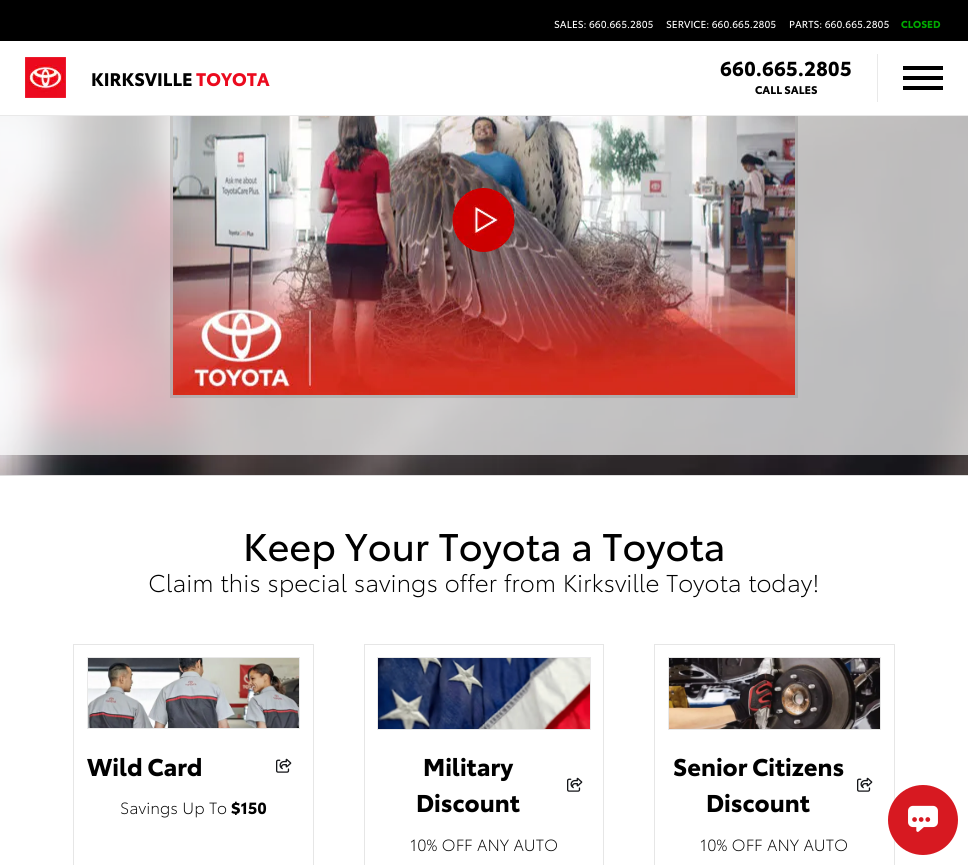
#include <cairo.h>
#include <math.h>
#include <stddef.h>

static cairo_t *ctx;

static void use_color(int r, int g, int b) {
    cairo_set_source_rgb(ctx, r / 255.0, g / 255.0, b / 255.0);
}

static void picture(const char *path, double x, double y, double w, double h) {
    cairo_surface_t *image = cairo_image_surface_create_from_png(path);
    cairo_save(ctx);
    cairo_set_source_surface(ctx, image, x, y);
    cairo_rectangle(ctx, x, y, w, h);
    cairo_fill(ctx);
    cairo_restore(ctx);
    cairo_surface_destroy(image);
}

int main(void) {
    cairo_surface_t *surface = cairo_image_surface_create(CAIRO_FORMAT_RGB24, 968, 865);
    ctx = cairo_create(surface);
    cairo_font_options_t *options = cairo_font_options_create();
    cairo_font_options_set_hint_metrics(options, CAIRO_HINT_METRICS_OFF);
    cairo_font_options_set_hint_style(options, CAIRO_HINT_STYLE_NONE);
    cairo_set_font_options(ctx, options);
    cairo_set_miter_limit(ctx, 4);
    use_color(255, 255, 255);
    cairo_paint(ctx);
    use_color(0, 0, 0);
    cairo_rectangle(ctx, 0, 0, 968, 41);
    cairo_fill(ctx);
    cairo_select_font_face(ctx, "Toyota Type", CAIRO_FONT_SLANT_NORMAL, CAIRO_FONT_WEIGHT_NORMAL);
    cairo_set_font_size(ctx, 10);
    use_color(255, 255, 255);
    cairo_move_to(ctx, 554, 28);
    cairo_show_text(ctx, "SALES: 660.665.2805");
    cairo_move_to(ctx, 666, 28);
    cairo_show_text(ctx, "SERVICE: 660.665.2805");
    cairo_move_to(ctx, 789, 28);
    cairo_show_text(ctx, "PARTS: 660.665.2805");
    cairo_select_font_face(ctx, "Toyota Type", CAIRO_FONT_SLANT_NORMAL, CAIRO_FONT_WEIGHT_BOLD);
    use_color(0, 169, 0);
    cairo_move_to(ctx, 901, 28);
    cairo_show_text(ctx, "CLOSED");
    picture("img2.png", 0, 116, 968, 359);
    picture("img3.png", 173, 116, 622, 279);
    cairo_rectangle(ctx, 171.5, 44.5, 625, 352);
    cairo_set_source_rgba(ctx, 0.502, 0.502, 0.502, 0.3);
    cairo_set_line_width(ctx, 3);
    cairo_stroke(ctx);
    use_color(255, 255, 255);
    cairo_rectangle(ctx, 170, 43, 628, 72);
    cairo_fill(ctx);
    use_color(233, 233, 233);
    cairo_rectangle(ctx, 0, 115, 968, 1);
    cairo_fill(ctx);
    picture("img1.png", 25, 57, 41, 41);
    cairo_set_font_size(ctx, 18);
    use_color(0, 0, 0);
    cairo_move_to(ctx, 91, 86);
    cairo_show_text(ctx, "KIRKSVILLE");
    use_color(235, 10, 30);
    cairo_move_to(ctx, 196, 86);
    cairo_show_text(ctx, "TOYOTA");
    use_color(233, 233, 233);
    cairo_rectangle(ctx, 877, 54, 1, 48);
    cairo_fill(ctx);
    cairo_set_font_size(ctx, 20);
    use_color(0, 0, 0);
    cairo_move_to(ctx, 720, 76);
    cairo_show_text(ctx, "660.665.2805");
    cairo_set_font_size(ctx, 11);
    cairo_move_to(ctx, 755, 94);
    cairo_show_text(ctx, "CALL SALES");
    cairo_rectangle(ctx, 903, 66, 40, 4);
    cairo_fill(ctx);
    cairo_rectangle(ctx, 903, 76, 40, 4);
    cairo_fill(ctx);
    cairo_rectangle(ctx, 903, 86, 40, 4);
    cairo_fill(ctx);
    picture("img4.png", 452, 188, 63, 64);
    use_color(221, 221, 221);
    cairo_rectangle(ctx, 0, 475, 968, 1);
    cairo_fill(ctx);
    cairo_select_font_face(ctx, "Toyota Type", CAIRO_FONT_SLANT_NORMAL, CAIRO_FONT_WEIGHT_NORMAL);
    cairo_set_font_size(ctx, 38);
    use_color(0, 0, 0);
    cairo_move_to(ctx, 243, 561);
    cairo_show_text(ctx, "Keep Your Toyota a Toyota");
    cairo_select_font_face(ctx, "Toyota Type Light", CAIRO_FONT_SLANT_NORMAL, CAIRO_FONT_WEIGHT_NORMAL);
    cairo_set_font_size(ctx, 24);
    cairo_move_to(ctx, 148, 592);
    cairo_show_text(ctx, "Claim this special savings offer from Kirksville Toyota today!");
    cairo_rectangle(ctx, 73.5, 644.5, 240, 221);
    use_color(230, 230, 230);
    cairo_set_line_width(ctx, 1);
    cairo_stroke(ctx);
    cairo_rectangle(ctx, 87.5, 657.5, 212, 71);
    use_color(233, 233, 233);
    cairo_stroke(ctx);
    picture("img5.png", 88, 658, 211, 70);
    cairo_select_font_face(ctx, "Toyota Type", CAIRO_FONT_SLANT_NORMAL, CAIRO_FONT_WEIGHT_BOLD);
    use_color(0, 0, 0);
    cairo_move_to(ctx, 87, 776);
    cairo_show_text(ctx, "Wild Card");
    picture("img6.png", 276, 758, 16, 15);
    cairo_select_font_face(ctx, "Toyota Type Light", CAIRO_FONT_SLANT_NORMAL, CAIRO_FONT_WEIGHT_NORMAL);
    cairo_set_font_size(ctx, 16);
    cairo_move_to(ctx, 120, 814);
    cairo_show_text(ctx, "Savings Up To");
    cairo_select_font_face(ctx, "Toyota Type", CAIRO_FONT_SLANT_NORMAL, CAIRO_FONT_WEIGHT_BOLD);
    cairo_move_to(ctx, 231, 814);
    cairo_show_text(ctx, "$150");
    cairo_rectangle(ctx, 364.5, 644.5, 239, 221);
    use_color(230, 230, 230);
    cairo_stroke(ctx);
    cairo_rectangle(ctx, 377.5, 657.5, 213, 72);
    use_color(233, 233, 233);
    cairo_stroke(ctx);
    picture("img7.png", 378, 658, 212, 71);
    cairo_set_font_size(ctx, 24);
    use_color(0, 0, 0);
    cairo_move_to(ctx, 423, 776);
    cairo_show_text(ctx, "Military");
    cairo_move_to(ctx, 416, 812);
    cairo_show_text(ctx, "Discount");
    picture("img6.png", 567, 777, 16, 15);
    cairo_select_font_face(ctx, "Toyota Type Light", CAIRO_FONT_SLANT_NORMAL, CAIRO_FONT_WEIGHT_NORMAL);
    cairo_set_font_size(ctx, 16);
    cairo_move_to(ctx, 410, 851);
    cairo_show_text(ctx, "10% OFF ANY AUTO");
    cairo_rectangle(ctx, 654.5, 644.5, 240, 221);
    use_color(230, 230, 230);
    cairo_stroke(ctx);
    cairo_rectangle(ctx, 668.5, 657.5, 212, 72);
    use_color(233, 233, 233);
    cairo_stroke(ctx);
    picture("img8.png", 669, 658, 211, 71);
    cairo_select_font_face(ctx, "Toyota Type", CAIRO_FONT_SLANT_NORMAL, CAIRO_FONT_WEIGHT_BOLD);
    cairo_set_font_size(ctx, 24);
    use_color(0, 0, 0);
    cairo_move_to(ctx, 673, 776);
    cairo_show_text(ctx, "Senior Citizens");
    cairo_move_to(ctx, 706, 812);
    cairo_show_text(ctx, "Discount");
    picture("img6.png", 857, 777, 16, 15);
    cairo_select_font_face(ctx, "Toyota Type Light", CAIRO_FONT_SLANT_NORMAL, CAIRO_FONT_WEIGHT_NORMAL);
    cairo_set_font_size(ctx, 16);
    cairo_move_to(ctx, 700, 851);
    cairo_show_text(ctx, "10% OFF ANY AUTO");
    use_color(215, 25, 33);
    cairo_new_path(ctx);
    cairo_arc(ctx, 923, 820, 35, 0, 2 * M_PI);
    cairo_fill(ctx);
    picture("img9.png", 908, 805, 30, 27);
    cairo_surface_write_to_png(surface, "result.png");
    cairo_font_options_destroy(options);
    cairo_destroy(ctx);
    cairo_surface_destroy(surface);
    return 0;
}
